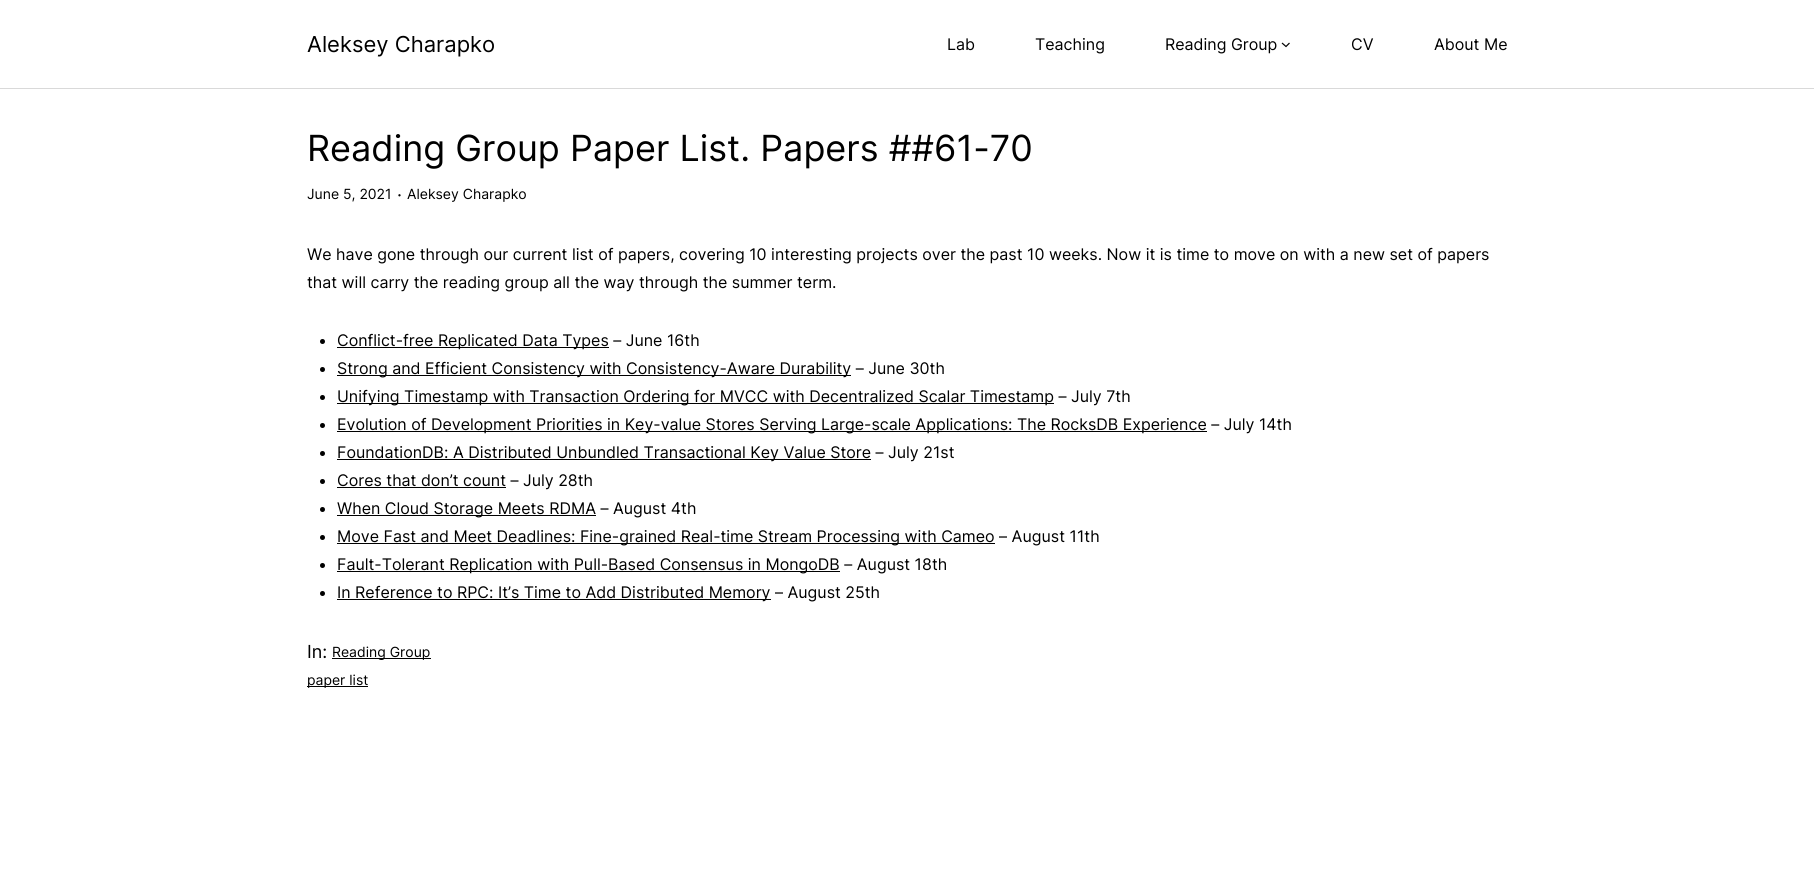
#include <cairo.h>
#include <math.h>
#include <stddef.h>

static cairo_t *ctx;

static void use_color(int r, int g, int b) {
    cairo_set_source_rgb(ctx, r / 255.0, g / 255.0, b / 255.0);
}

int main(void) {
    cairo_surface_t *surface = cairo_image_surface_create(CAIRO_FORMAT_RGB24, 1814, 879);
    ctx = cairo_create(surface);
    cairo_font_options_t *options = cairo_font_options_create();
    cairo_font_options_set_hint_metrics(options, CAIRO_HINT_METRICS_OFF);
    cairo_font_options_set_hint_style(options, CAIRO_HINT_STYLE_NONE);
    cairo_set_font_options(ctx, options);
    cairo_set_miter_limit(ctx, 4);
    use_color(255, 255, 255);
    cairo_paint(ctx);
    use_color(217, 217, 217);
    cairo_rectangle(ctx, 0, 88, 1814, 1);
    cairo_fill(ctx);
    cairo_select_font_face(ctx, "Inter", CAIRO_FONT_SLANT_NORMAL, CAIRO_FONT_WEIGHT_NORMAL);
    cairo_set_font_size(ctx, 22);
    use_color(0, 0, 0);
    cairo_move_to(ctx, 307, 52);
    cairo_show_text(ctx, "Aleksey Charapko");
    cairo_set_font_size(ctx, 16);
    cairo_move_to(ctx, 947, 50);
    cairo_show_text(ctx, "Lab");
    cairo_move_to(ctx, 1035, 50);
    cairo_show_text(ctx, "Teaching");
    cairo_move_to(ctx, 1165, 50);
    cairo_show_text(ctx, "Reading Group");
    cairo_new_path(ctx);
    cairo_move_to(ctx, 1282, 43);
    cairo_line_to(ctx, 1286, 46.5);
    cairo_line_to(ctx, 1289.5, 43);
    cairo_set_line_width(ctx, 1.2);
    cairo_stroke(ctx);
    cairo_move_to(ctx, 1351, 50);
    cairo_show_text(ctx, "CV");
    cairo_move_to(ctx, 1434, 50);
    cairo_show_text(ctx, "About Me");
    cairo_set_font_size(ctx, 36);
    cairo_move_to(ctx, 307, 161);
    cairo_show_text(ctx, "Reading Group Paper List. Papers ##61-70");
    cairo_set_font_size(ctx, 14);
    cairo_move_to(ctx, 307, 199);
    cairo_show_text(ctx, "June 5, 2021");
    cairo_set_font_size(ctx, 18);
    cairo_move_to(ctx, 397, 201);
    cairo_show_text(ctx, "·");
    cairo_set_font_size(ctx, 14);
    cairo_move_to(ctx, 407, 199);
    cairo_show_text(ctx, "Aleksey Charapko");
    cairo_set_font_size(ctx, 16);
    cairo_move_to(ctx, 307, 260);
    cairo_show_text(ctx, "We have gone through our current list of papers, covering 10 interesting projects over the past 10 weeks. Now it is time to move on with a new set of papers");
    cairo_move_to(ctx, 307, 288);
    cairo_show_text(ctx, "that will carry the reading group all the way through the summer term.");
    cairo_new_path(ctx);
    cairo_arc(ctx, 322.5, 341.5, 2.5, 0, 2 * M_PI);
    cairo_fill(ctx);
    cairo_rectangle(ctx, 337, 347, 272, 1);
    cairo_fill(ctx);
    cairo_move_to(ctx, 337, 346);
    cairo_show_text(ctx, "Conflict-free Replicated Data Types – June 16th");
    cairo_new_path(ctx);
    cairo_arc(ctx, 322.5, 369.5, 2.5, 0, 2 * M_PI);
    cairo_fill(ctx);
    cairo_rectangle(ctx, 337, 375, 514, 1);
    cairo_fill(ctx);
    cairo_move_to(ctx, 337, 374);
    cairo_show_text(ctx, "Strong and Efficient Consistency with Consistency-Aware Durability – June 30th");
    cairo_new_path(ctx);
    cairo_arc(ctx, 322.5, 397.5, 2.5, 0, 2 * M_PI);
    cairo_fill(ctx);
    cairo_rectangle(ctx, 337, 403, 717, 1);
    cairo_fill(ctx);
    cairo_move_to(ctx, 337, 402);
    cairo_show_text(ctx, "Unifying Timestamp with Transaction Ordering for MVCC with Decentralized Scalar Timestamp – July 7th");
    cairo_new_path(ctx);
    cairo_arc(ctx, 322.5, 425.5, 2.5, 0, 2 * M_PI);
    cairo_fill(ctx);
    cairo_rectangle(ctx, 337, 431, 870, 1);
    cairo_fill(ctx);
    cairo_move_to(ctx, 337, 430);
    cairo_show_text(ctx, "Evolution of Development Priorities in Key-value Stores Serving Large-scale Applications: The RocksDB Experience – July 14th");
    cairo_new_path(ctx);
    cairo_arc(ctx, 322.5, 453.5, 2.5, 0, 2 * M_PI);
    cairo_fill(ctx);
    cairo_rectangle(ctx, 337, 459, 534, 1);
    cairo_fill(ctx);
    cairo_move_to(ctx, 337, 458);
    cairo_show_text(ctx, "FoundationDB: A Distributed Unbundled Transactional Key Value Store – July 21st");
    cairo_new_path(ctx);
    cairo_arc(ctx, 322.5, 481.5, 2.5, 0, 2 * M_PI);
    cairo_fill(ctx);
    cairo_rectangle(ctx, 337, 487, 169, 1);
    cairo_fill(ctx);
    cairo_move_to(ctx, 337, 486);
    cairo_show_text(ctx, "Cores that don’t count – July 28th");
    cairo_new_path(ctx);
    cairo_arc(ctx, 322.5, 509.5, 2.5, 0, 2 * M_PI);
    cairo_fill(ctx);
    cairo_rectangle(ctx, 337, 515, 259, 1);
    cairo_fill(ctx);
    cairo_move_to(ctx, 337, 514);
    cairo_show_text(ctx, "When Cloud Storage Meets RDMA – August 4th");
    cairo_new_path(ctx);
    cairo_arc(ctx, 322.5, 537.5, 2.5, 0, 2 * M_PI);
    cairo_fill(ctx);
    cairo_rectangle(ctx, 337, 543, 658, 1);
    cairo_fill(ctx);
    cairo_move_to(ctx, 337, 542);
    cairo_show_text(ctx, "Move Fast and Meet Deadlines: Fine-grained Real-time Stream Processing with Cameo – August 11th");
    cairo_new_path(ctx);
    cairo_arc(ctx, 322.5, 565.5, 2.5, 0, 2 * M_PI);
    cairo_fill(ctx);
    cairo_rectangle(ctx, 337, 571, 503, 1);
    cairo_fill(ctx);
    cairo_move_to(ctx, 337, 570);
    cairo_show_text(ctx, "Fault-Tolerant Replication with Pull-Based Consensus in MongoDB – August 18th");
    cairo_new_path(ctx);
    cairo_arc(ctx, 322.5, 593.5, 2.5, 0, 2 * M_PI);
    cairo_fill(ctx);
    cairo_rectangle(ctx, 337, 599, 434, 1);
    cairo_fill(ctx);
    cairo_move_to(ctx, 337, 598);
    cairo_show_text(ctx, "In Reference to RPC: It’s Time to Add Distributed Memory – August 25th");
    cairo_set_font_size(ctx, 18);
    cairo_move_to(ctx, 307, 658);
    cairo_show_text(ctx, "In:");
    cairo_rectangle(ctx, 332, 658, 99, 1);
    cairo_fill(ctx);
    cairo_set_font_size(ctx, 14);
    cairo_move_to(ctx, 332, 657);
    cairo_show_text(ctx, "Reading Group");
    cairo_rectangle(ctx, 307, 686, 61, 1);
    cairo_fill(ctx);
    cairo_move_to(ctx, 307, 685);
    cairo_show_text(ctx, "paper list");
    cairo_surface_write_to_png(surface, "result.png");
    cairo_font_options_destroy(options);
    cairo_destroy(ctx);
    cairo_surface_destroy(surface);
    return 0;
}
